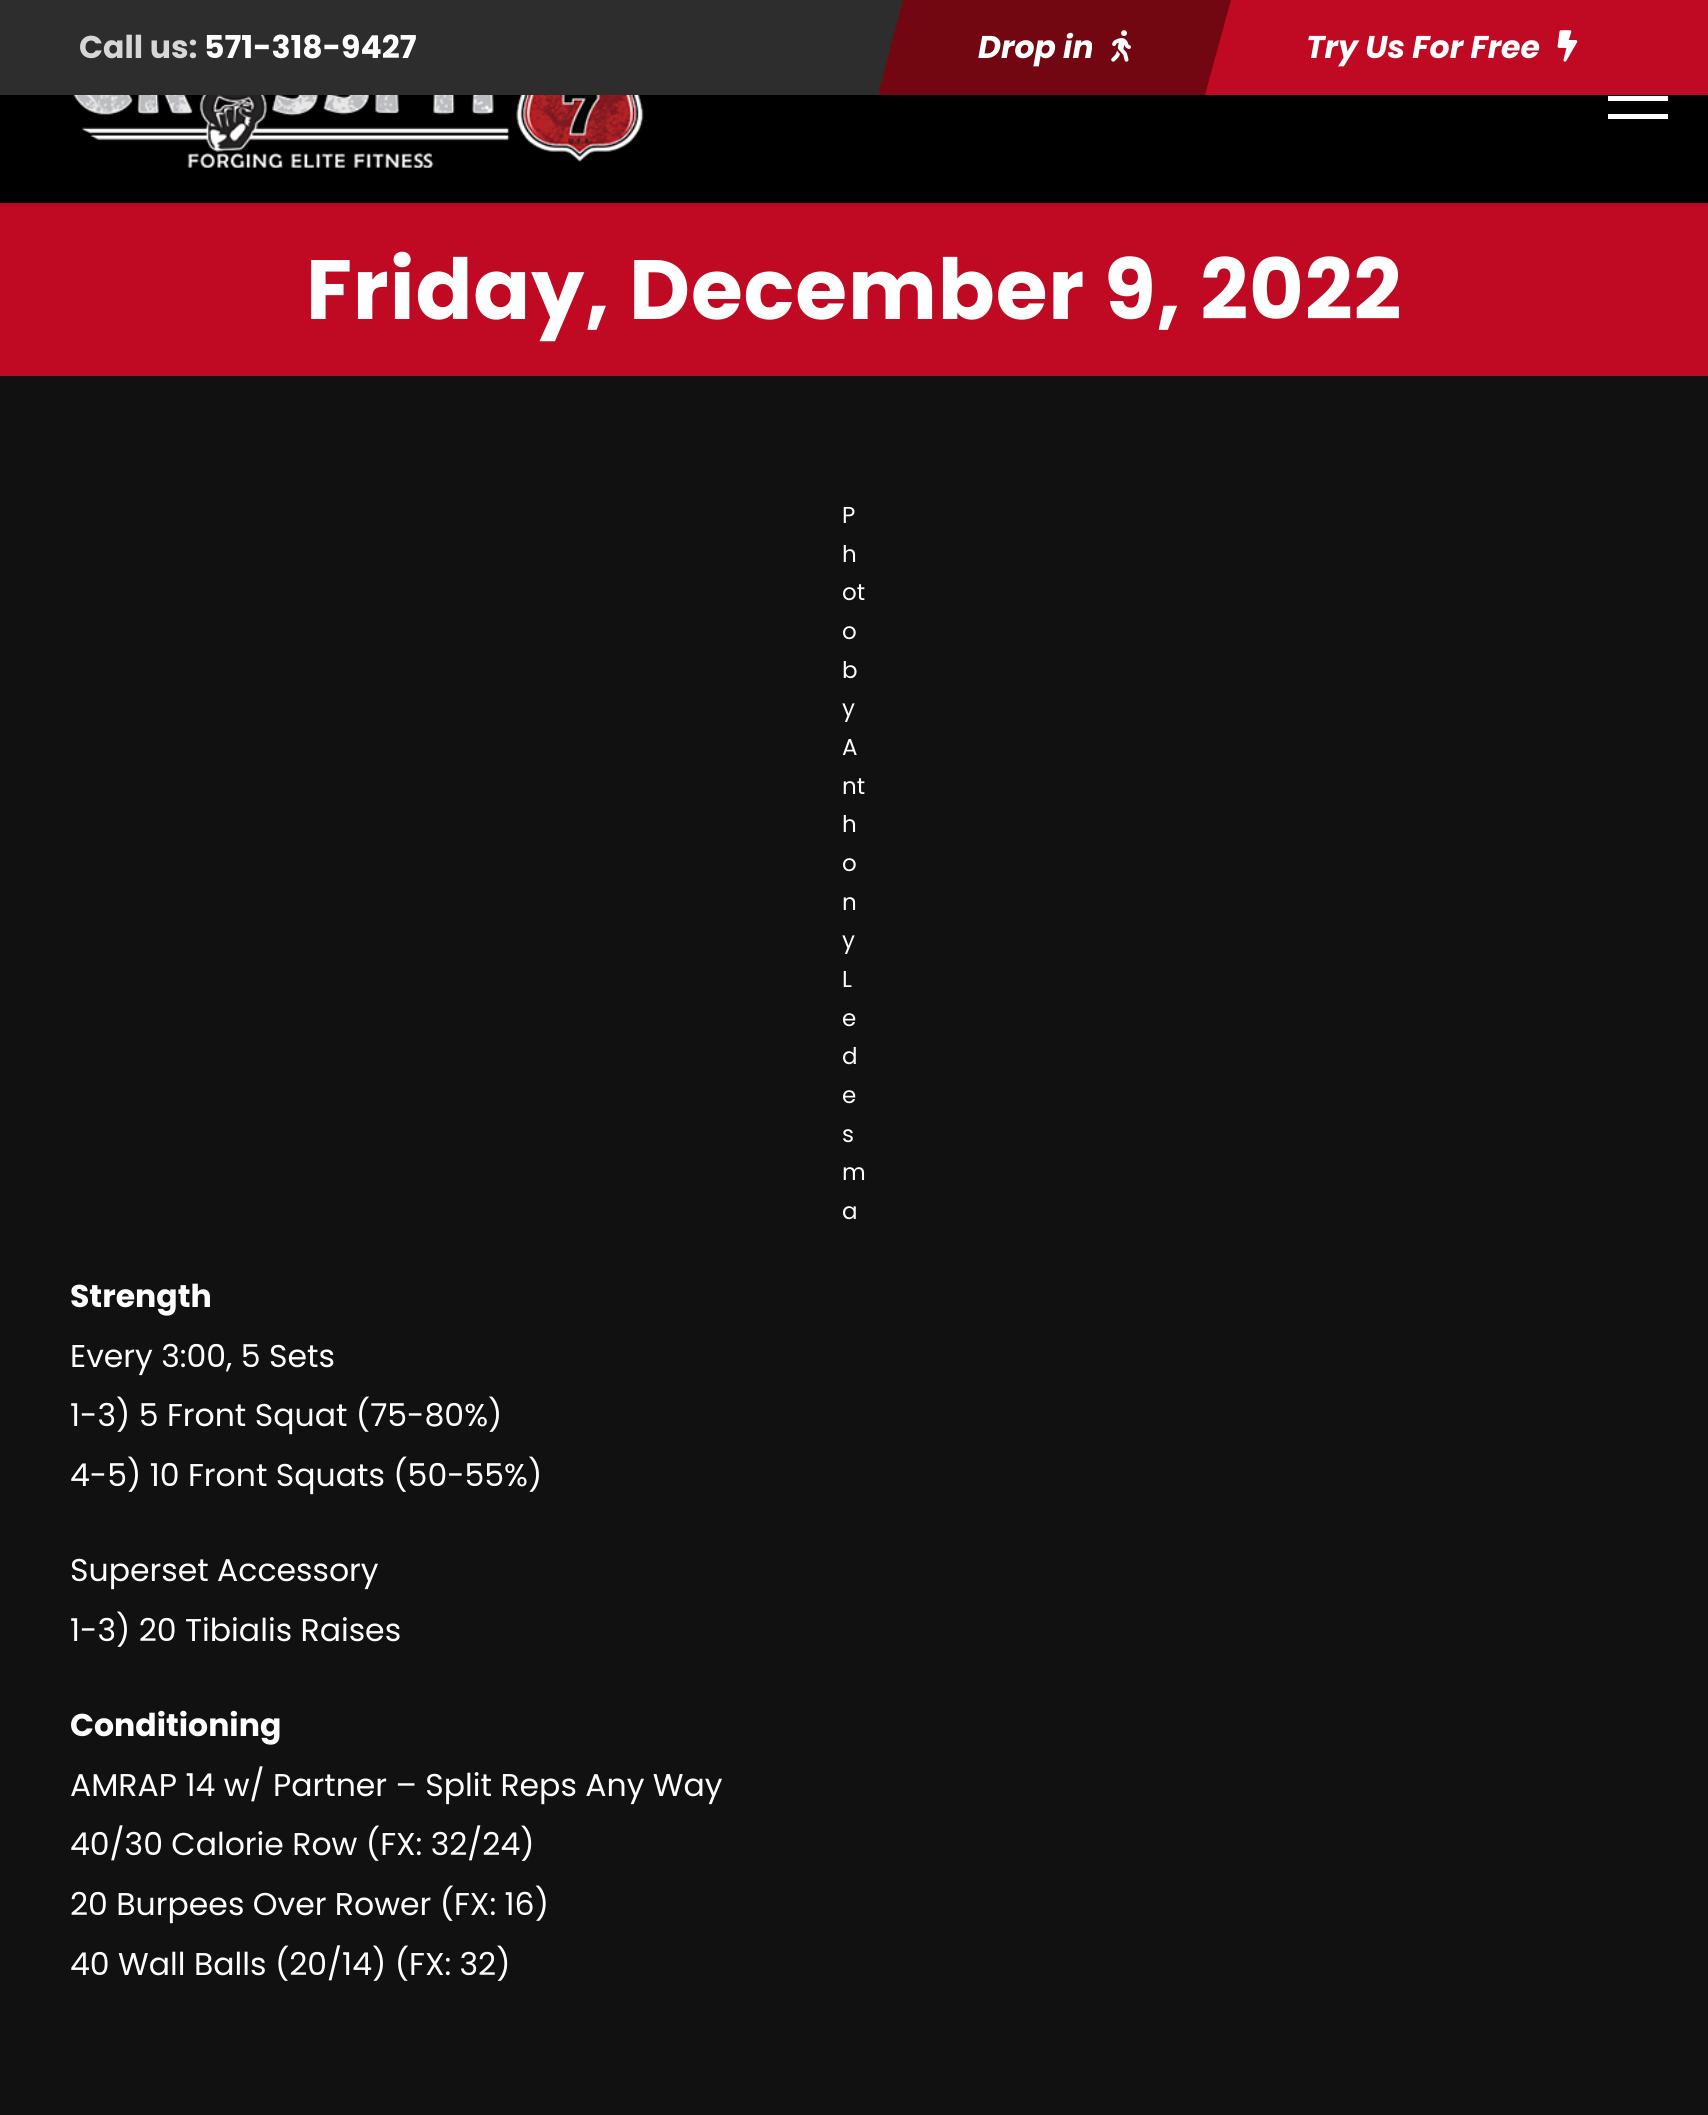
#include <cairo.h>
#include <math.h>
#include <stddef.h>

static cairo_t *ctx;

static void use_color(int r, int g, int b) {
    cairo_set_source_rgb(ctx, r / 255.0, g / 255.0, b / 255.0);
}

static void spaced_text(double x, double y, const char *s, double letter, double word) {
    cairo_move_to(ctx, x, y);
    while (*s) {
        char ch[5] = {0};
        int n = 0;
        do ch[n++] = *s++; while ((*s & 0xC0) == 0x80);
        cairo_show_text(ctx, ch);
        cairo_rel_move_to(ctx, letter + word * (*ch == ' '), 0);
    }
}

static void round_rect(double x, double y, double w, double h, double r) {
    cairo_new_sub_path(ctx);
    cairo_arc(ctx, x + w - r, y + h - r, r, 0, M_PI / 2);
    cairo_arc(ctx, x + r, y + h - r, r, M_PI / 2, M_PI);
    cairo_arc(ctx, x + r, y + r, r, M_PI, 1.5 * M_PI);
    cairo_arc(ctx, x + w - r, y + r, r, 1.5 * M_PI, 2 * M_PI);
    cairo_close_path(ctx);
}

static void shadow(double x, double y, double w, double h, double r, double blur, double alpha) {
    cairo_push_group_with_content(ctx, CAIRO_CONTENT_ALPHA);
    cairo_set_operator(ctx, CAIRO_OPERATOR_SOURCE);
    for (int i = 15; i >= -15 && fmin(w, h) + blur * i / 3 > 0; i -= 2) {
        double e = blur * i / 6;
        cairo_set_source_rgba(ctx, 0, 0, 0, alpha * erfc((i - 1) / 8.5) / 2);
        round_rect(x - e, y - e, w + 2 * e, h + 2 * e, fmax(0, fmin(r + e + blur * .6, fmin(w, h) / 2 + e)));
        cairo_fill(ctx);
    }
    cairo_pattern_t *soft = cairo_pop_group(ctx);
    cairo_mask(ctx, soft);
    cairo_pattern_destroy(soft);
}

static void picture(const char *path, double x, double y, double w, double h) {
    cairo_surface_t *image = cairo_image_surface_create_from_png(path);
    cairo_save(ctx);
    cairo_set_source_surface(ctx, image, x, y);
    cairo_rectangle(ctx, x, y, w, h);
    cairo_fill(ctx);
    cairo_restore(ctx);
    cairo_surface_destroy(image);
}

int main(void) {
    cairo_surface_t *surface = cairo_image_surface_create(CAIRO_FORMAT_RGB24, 1708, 2115);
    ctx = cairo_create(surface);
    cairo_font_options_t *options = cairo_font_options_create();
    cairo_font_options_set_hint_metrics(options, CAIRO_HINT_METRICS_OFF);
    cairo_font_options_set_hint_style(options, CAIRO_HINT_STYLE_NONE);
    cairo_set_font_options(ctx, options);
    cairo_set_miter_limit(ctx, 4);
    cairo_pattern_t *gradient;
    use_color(17, 17, 17);
    cairo_paint(ctx);
    use_color(192, 10, 36);
    cairo_rectangle(ctx, 0, 203, 1708, 173);
    cairo_fill(ctx);
    use_color(0, 0, 0);
    shadow(0, -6, 1708, 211, 0, 2, 0.1);
    use_color(0, 0, 0);
    cairo_rectangle(ctx, 0, 95, 1708, 108);
    cairo_fill(ctx);
    picture("img1.png", 73, 95, 571, 73);
    use_color(255, 255, 255);
    cairo_rectangle(ctx, 1608, 96, 60, 5);
    cairo_fill(ctx);
    cairo_rectangle(ctx, 1608, 114, 60, 5);
    cairo_fill(ctx);
    use_color(45, 45, 45);
    cairo_rectangle(ctx, 0, 0, 903, 95);
    cairo_fill(ctx);
    cairo_select_font_face(ctx, "Poppins", CAIRO_FONT_SLANT_NORMAL, CAIRO_FONT_WEIGHT_BOLD);
    cairo_set_font_size(ctx, 31.5);
    use_color(215, 215, 215);
    cairo_move_to(ctx, 79, 58);
    cairo_show_text(ctx, "Call us:");
    use_color(255, 255, 255);
    cairo_move_to(ctx, 204, 58);
    cairo_show_text(ctx, "571-318-9427");
    use_color(114, 7, 17);
    cairo_new_path(ctx);
    cairo_move_to(ctx, 903, 0);
    cairo_line_to(ctx, 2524, 0);
    cairo_line_to(ctx, 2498, 95);
    cairo_line_to(ctx, 878, 95);
    cairo_close_path(ctx);
    cairo_fill(ctx);
    cairo_select_font_face(ctx, "Poppins", CAIRO_FONT_SLANT_ITALIC, CAIRO_FONT_WEIGHT_BOLD);
    use_color(255, 255, 255);
    cairo_move_to(ctx, 978, 58);
    cairo_show_text(ctx, "Drop in");
    picture("img2.png", 1111, 30, 20, 32);
    gradient = cairo_pattern_create_linear(-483, 47, 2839, 47);
    cairo_pattern_add_color_stop_rgba(gradient, 0, 0.267, 0.267, 0.267, 1);
    cairo_pattern_add_color_stop_rgba(gradient, 0.5, 0.447, 0.027, 0.067, 1);
    cairo_pattern_add_color_stop_rgba(gradient, 0.5, 0.753, 0.039, 0.141, 1);
    cairo_pattern_add_color_stop_rgba(gradient, 1, 0.753, 0.039, 0.141, 1);
    cairo_set_source(ctx, gradient);
    cairo_pattern_destroy(gradient);
    cairo_new_path(ctx);
    cairo_move_to(ctx, 1231, 0);
    cairo_line_to(ctx, 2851, 0);
    cairo_line_to(ctx, 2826, 95);
    cairo_line_to(ctx, 1205, 95);
    cairo_close_path(ctx);
    cairo_fill(ctx);
    use_color(255, 255, 255);
    cairo_move_to(ctx, 1306, 58);
    cairo_show_text(ctx, "Try Us For Free");
    picture("img3.png", 1557, 30, 21, 32);
    cairo_select_font_face(ctx, "Poppins", CAIRO_FONT_SLANT_NORMAL, CAIRO_FONT_WEIGHT_BOLD);
    cairo_set_font_size(ctx, 84);
    spaced_text(306, 319, "Friday, December 9, 2022", 0.9, 0);
    cairo_select_font_face(ctx, "Poppins", CAIRO_FONT_SLANT_NORMAL, CAIRO_FONT_WEIGHT_NORMAL);
    cairo_set_font_size(ctx, 23);
    cairo_move_to(ctx, 842, 523);
    cairo_show_text(ctx, "P");
    cairo_move_to(ctx, 842, 562);
    cairo_show_text(ctx, "h");
    cairo_move_to(ctx, 842, 600);
    cairo_show_text(ctx, "ot");
    cairo_move_to(ctx, 842, 639);
    cairo_show_text(ctx, "o");
    cairo_move_to(ctx, 842, 678);
    cairo_show_text(ctx, "b");
    cairo_move_to(ctx, 842, 716);
    cairo_show_text(ctx, "y");
    cairo_move_to(ctx, 842, 755);
    cairo_show_text(ctx, "A");
    cairo_move_to(ctx, 842, 794);
    cairo_show_text(ctx, "nt");
    cairo_move_to(ctx, 842, 832);
    cairo_show_text(ctx, "h");
    cairo_move_to(ctx, 842, 871);
    cairo_show_text(ctx, "o");
    cairo_move_to(ctx, 842, 910);
    cairo_show_text(ctx, "n");
    cairo_move_to(ctx, 842, 948);
    cairo_show_text(ctx, "y");
    cairo_move_to(ctx, 842, 987);
    cairo_show_text(ctx, "L");
    cairo_move_to(ctx, 842, 1026);
    cairo_show_text(ctx, "e");
    cairo_move_to(ctx, 842, 1064);
    cairo_show_text(ctx, "d");
    cairo_move_to(ctx, 842, 1103);
    cairo_show_text(ctx, "e");
    cairo_move_to(ctx, 842, 1142);
    cairo_show_text(ctx, "s");
    cairo_move_to(ctx, 842, 1180);
    cairo_show_text(ctx, "m");
    cairo_move_to(ctx, 842, 1219);
    cairo_show_text(ctx, "a");
    cairo_select_font_face(ctx, "Poppins", CAIRO_FONT_SLANT_NORMAL, CAIRO_FONT_WEIGHT_BOLD);
    cairo_set_font_size(ctx, 31.5);
    cairo_move_to(ctx, 70, 1307);
    cairo_show_text(ctx, "Strength");
    cairo_select_font_face(ctx, "Poppins", CAIRO_FONT_SLANT_NORMAL, CAIRO_FONT_WEIGHT_NORMAL);
    cairo_move_to(ctx, 70, 1367);
    cairo_show_text(ctx, "Every 3:00, 5 Sets");
    cairo_move_to(ctx, 70, 1426);
    cairo_show_text(ctx, "1-3) 5 Front Squat (75-80%)");
    cairo_move_to(ctx, 70, 1486);
    cairo_show_text(ctx, "4-5) 10 Front Squats (50-55%)");
    cairo_move_to(ctx, 70, 1581);
    cairo_show_text(ctx, "Superset Accessory");
    cairo_move_to(ctx, 70, 1641);
    cairo_show_text(ctx, "1-3) 20 Tibialis Raises");
    cairo_select_font_face(ctx, "Poppins", CAIRO_FONT_SLANT_NORMAL, CAIRO_FONT_WEIGHT_BOLD);
    cairo_move_to(ctx, 70, 1736);
    cairo_show_text(ctx, "Conditioning");
    cairo_select_font_face(ctx, "Poppins", CAIRO_FONT_SLANT_NORMAL, CAIRO_FONT_WEIGHT_NORMAL);
    cairo_move_to(ctx, 70, 1796);
    cairo_show_text(ctx, "AMRAP 14 w/ Partner – Split Reps Any Way");
    cairo_move_to(ctx, 70, 1855);
    cairo_show_text(ctx, "40/30 Calorie Row (FX: 32/24)");
    cairo_move_to(ctx, 70, 1915);
    cairo_show_text(ctx, "20 Burpees Over Rower (FX: 16)");
    cairo_move_to(ctx, 70, 1975);
    cairo_show_text(ctx, "40 Wall Balls (20/14) (FX: 32)");
    cairo_surface_write_to_png(surface, "result.png");
    cairo_font_options_destroy(options);
    cairo_destroy(ctx);
    cairo_surface_destroy(surface);
    return 0;
}
